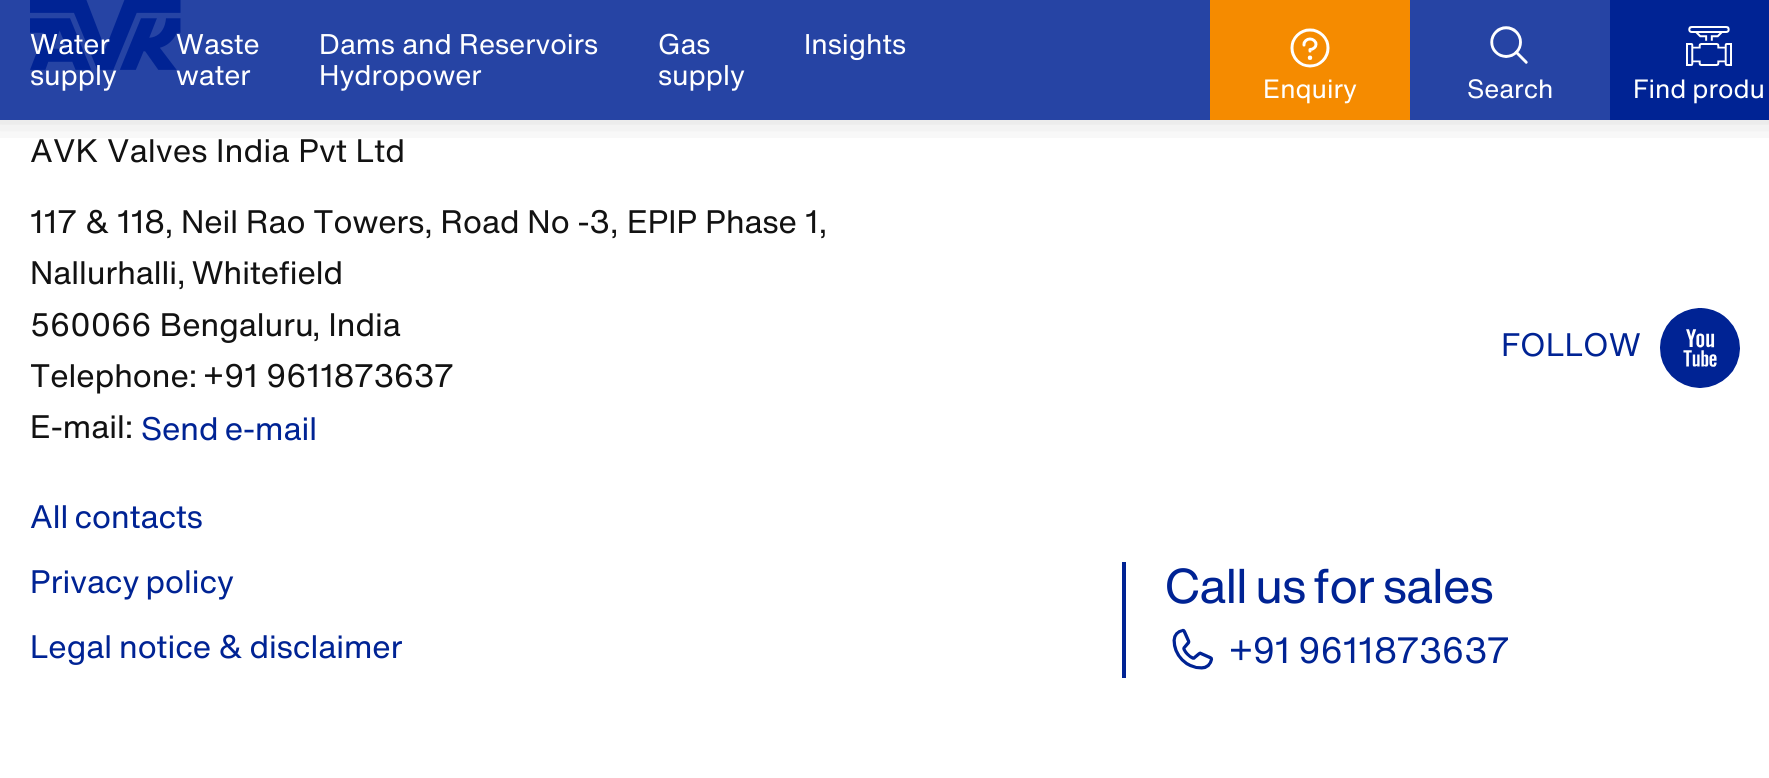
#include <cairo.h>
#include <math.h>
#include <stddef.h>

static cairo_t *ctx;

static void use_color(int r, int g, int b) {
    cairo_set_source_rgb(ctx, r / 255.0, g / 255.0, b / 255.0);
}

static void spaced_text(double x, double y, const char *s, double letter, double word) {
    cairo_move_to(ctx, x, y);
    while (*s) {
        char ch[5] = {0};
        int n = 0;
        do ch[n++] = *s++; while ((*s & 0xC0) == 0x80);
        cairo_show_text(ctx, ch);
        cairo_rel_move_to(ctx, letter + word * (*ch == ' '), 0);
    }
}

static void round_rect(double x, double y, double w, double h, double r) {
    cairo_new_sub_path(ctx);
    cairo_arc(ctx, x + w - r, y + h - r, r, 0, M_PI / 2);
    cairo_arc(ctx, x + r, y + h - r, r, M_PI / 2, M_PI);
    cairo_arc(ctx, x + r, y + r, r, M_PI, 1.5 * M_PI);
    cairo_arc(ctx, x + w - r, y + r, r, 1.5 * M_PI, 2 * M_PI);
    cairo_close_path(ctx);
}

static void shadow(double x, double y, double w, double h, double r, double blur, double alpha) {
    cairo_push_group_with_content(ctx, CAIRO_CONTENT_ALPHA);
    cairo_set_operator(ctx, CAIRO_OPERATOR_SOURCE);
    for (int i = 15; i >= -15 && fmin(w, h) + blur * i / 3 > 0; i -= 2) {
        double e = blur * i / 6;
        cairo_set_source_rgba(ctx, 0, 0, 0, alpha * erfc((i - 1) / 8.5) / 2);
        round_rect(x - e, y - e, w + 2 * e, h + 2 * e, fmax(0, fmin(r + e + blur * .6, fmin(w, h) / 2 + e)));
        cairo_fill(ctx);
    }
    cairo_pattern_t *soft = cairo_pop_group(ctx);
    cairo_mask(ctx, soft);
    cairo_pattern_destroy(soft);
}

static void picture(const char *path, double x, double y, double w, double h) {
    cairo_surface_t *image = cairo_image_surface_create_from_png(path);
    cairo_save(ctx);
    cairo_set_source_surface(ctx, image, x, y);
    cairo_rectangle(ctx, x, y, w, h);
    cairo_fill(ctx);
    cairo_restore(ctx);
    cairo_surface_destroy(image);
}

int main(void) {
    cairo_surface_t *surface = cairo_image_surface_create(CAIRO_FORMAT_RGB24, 1769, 778);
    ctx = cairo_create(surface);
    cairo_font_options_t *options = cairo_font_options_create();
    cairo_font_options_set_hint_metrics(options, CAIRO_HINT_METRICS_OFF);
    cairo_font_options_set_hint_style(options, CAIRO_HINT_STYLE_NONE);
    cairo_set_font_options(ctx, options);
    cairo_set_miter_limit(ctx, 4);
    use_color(255, 255, 255);
    cairo_paint(ctx);
    use_color(38, 68, 164);
    cairo_rectangle(ctx, 0, 0, 1610, 120);
    cairo_fill(ctx);
    picture("img4.png", 30, 0, 151, 70);
    cairo_save(ctx);
    cairo_rectangle(ctx, 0, 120, 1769, 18);
    cairo_clip(ctx);
    use_color(0, 0, 0);
    shadow(-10, -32, 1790, 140, 0, 20, 0.3);
    cairo_restore(ctx);
    cairo_select_font_face(ctx, "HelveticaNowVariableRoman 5", CAIRO_FONT_SLANT_NORMAL, CAIRO_FONT_WEIGHT_NORMAL);
    cairo_set_font_size(ctx, 28);
    use_color(255, 255, 255);
    cairo_move_to(ctx, 30, 54);
    cairo_show_text(ctx, "Water");
    cairo_move_to(ctx, 30, 85);
    cairo_show_text(ctx, "supply");
    cairo_move_to(ctx, 176, 54);
    cairo_show_text(ctx, "Waste");
    cairo_move_to(ctx, 176, 85);
    cairo_show_text(ctx, "water");
    cairo_move_to(ctx, 319, 54);
    cairo_show_text(ctx, "Dams and Reservoirs");
    cairo_move_to(ctx, 319, 85);
    cairo_show_text(ctx, "Hydropower");
    cairo_move_to(ctx, 658, 54);
    cairo_show_text(ctx, "Gas");
    cairo_move_to(ctx, 658, 85);
    cairo_show_text(ctx, "supply");
    cairo_move_to(ctx, 804, 54);
    cairo_show_text(ctx, "Insights");
    use_color(245, 139, 0);
    cairo_rectangle(ctx, 1210, 0, 200, 120);
    cairo_fill(ctx);
    picture("img1.png", 1290, 28, 40, 40);
    cairo_select_font_face(ctx, "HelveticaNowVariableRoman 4", CAIRO_FONT_SLANT_NORMAL, CAIRO_FONT_WEIGHT_NORMAL);
    cairo_set_font_size(ctx, 26);
    use_color(255, 255, 255);
    cairo_move_to(ctx, 1263, 98);
    cairo_show_text(ctx, "Enquiry");
    picture("img2.png", 1490, 26, 38, 38);
    cairo_move_to(ctx, 1467, 98);
    cairo_show_text(ctx, "Search");
    use_color(0, 35, 148);
    cairo_rectangle(ctx, 1610, 0, 159, 120);
    cairo_fill(ctx);
    picture("img3.png", 1686, 26, 46, 40);
    use_color(255, 255, 255);
    spaced_text(1633, 98, "Find produ", 0, -1);
    cairo_select_font_face(ctx, "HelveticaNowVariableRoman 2", CAIRO_FONT_SLANT_NORMAL, CAIRO_FONT_WEIGHT_NORMAL);
    cairo_set_font_size(ctx, 32);
    use_color(18, 18, 18);
    cairo_move_to(ctx, 30, 162);
    cairo_show_text(ctx, "AVK Valves India Pvt Ltd");
    cairo_select_font_face(ctx, "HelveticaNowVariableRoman", CAIRO_FONT_SLANT_NORMAL, CAIRO_FONT_WEIGHT_NORMAL);
    spaced_text(30, 233, "117 & 118, Neil Rao Towers, Road No -3", 0, -0.25);
    cairo_move_to(ctx, 610, 233);
    cairo_show_text(ctx, ",");
    cairo_move_to(ctx, 627, 233);
    cairo_show_text(ctx, "EPIP Phase 1,");
    spaced_text(30, 284, "Nallurhalli, Whitefield", 0, -2);
    cairo_move_to(ctx, 30, 336);
    cairo_show_text(ctx, "560066 Bengaluru");
    cairo_move_to(ctx, 312, 336);
    cairo_show_text(ctx, ", India");
    cairo_move_to(ctx, 30, 387);
    cairo_show_text(ctx, "Telephone:");
    cairo_move_to(ctx, 203, 387);
    cairo_show_text(ctx, "+91 9611873637");
    cairo_move_to(ctx, 30, 438);
    cairo_show_text(ctx, "E-mail:");
    use_color(0, 35, 148);
    spaced_text(141, 440, "Send e-mail", 0, -2);
    spaced_text(30, 528, "All contacts", 0, -2);
    spaced_text(30, 593, "Privacy policy", 0, -2);
    spaced_text(30, 658, "Legal notice & disclaimer", 0, -1);
    cairo_select_font_face(ctx, "HelveticaNowVariableRoman 2", CAIRO_FONT_SLANT_NORMAL, CAIRO_FONT_WEIGHT_NORMAL);
    cairo_move_to(ctx, 1501, 356);
    cairo_show_text(ctx, "FOLLOW");
    picture("img5.png", 1660, 308, 80, 80);
    cairo_rectangle(ctx, 1122, 562, 4, 116);
    cairo_fill(ctx);
    cairo_select_font_face(ctx, "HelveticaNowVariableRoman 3", CAIRO_FONT_SLANT_NORMAL, CAIRO_FONT_WEIGHT_NORMAL);
    cairo_set_font_size(ctx, 48);
    spaced_text(1165, 603, "Call us for sales", 0, -2.5);
    picture("img6.png", 1172, 628, 42, 42);
    cairo_select_font_face(ctx, "HelveticaNowVariableRoman 2", CAIRO_FONT_SLANT_NORMAL, CAIRO_FONT_WEIGHT_NORMAL);
    cairo_set_font_size(ctx, 36);
    spaced_text(1229, 663, "+91 9611873637", -0.5, -2);
    cairo_surface_write_to_png(surface, "result.png");
    cairo_font_options_destroy(options);
    cairo_destroy(ctx);
    cairo_surface_destroy(surface);
    return 0;
}
